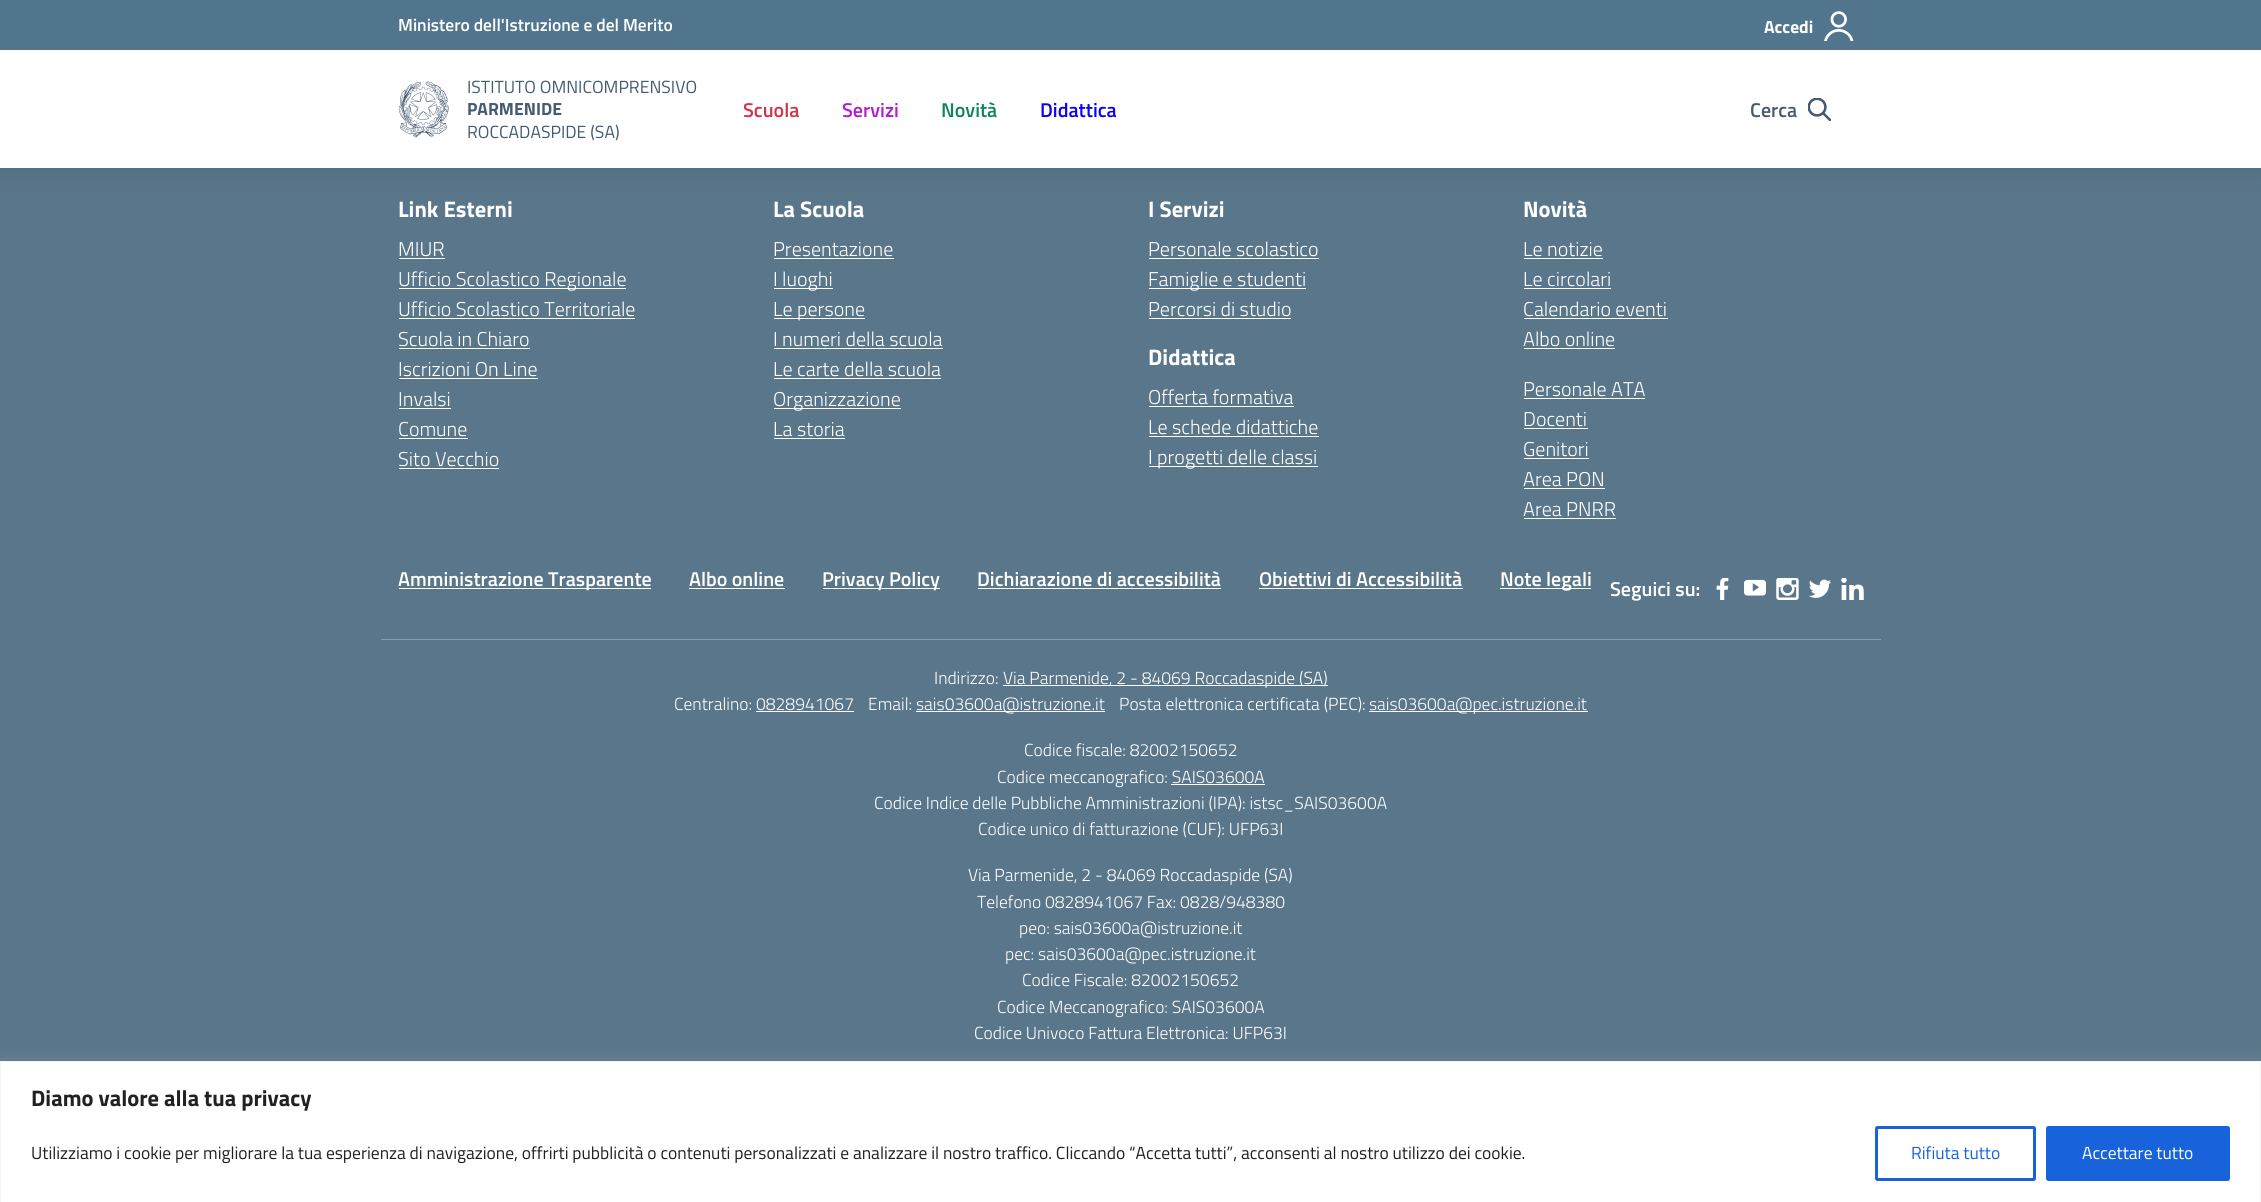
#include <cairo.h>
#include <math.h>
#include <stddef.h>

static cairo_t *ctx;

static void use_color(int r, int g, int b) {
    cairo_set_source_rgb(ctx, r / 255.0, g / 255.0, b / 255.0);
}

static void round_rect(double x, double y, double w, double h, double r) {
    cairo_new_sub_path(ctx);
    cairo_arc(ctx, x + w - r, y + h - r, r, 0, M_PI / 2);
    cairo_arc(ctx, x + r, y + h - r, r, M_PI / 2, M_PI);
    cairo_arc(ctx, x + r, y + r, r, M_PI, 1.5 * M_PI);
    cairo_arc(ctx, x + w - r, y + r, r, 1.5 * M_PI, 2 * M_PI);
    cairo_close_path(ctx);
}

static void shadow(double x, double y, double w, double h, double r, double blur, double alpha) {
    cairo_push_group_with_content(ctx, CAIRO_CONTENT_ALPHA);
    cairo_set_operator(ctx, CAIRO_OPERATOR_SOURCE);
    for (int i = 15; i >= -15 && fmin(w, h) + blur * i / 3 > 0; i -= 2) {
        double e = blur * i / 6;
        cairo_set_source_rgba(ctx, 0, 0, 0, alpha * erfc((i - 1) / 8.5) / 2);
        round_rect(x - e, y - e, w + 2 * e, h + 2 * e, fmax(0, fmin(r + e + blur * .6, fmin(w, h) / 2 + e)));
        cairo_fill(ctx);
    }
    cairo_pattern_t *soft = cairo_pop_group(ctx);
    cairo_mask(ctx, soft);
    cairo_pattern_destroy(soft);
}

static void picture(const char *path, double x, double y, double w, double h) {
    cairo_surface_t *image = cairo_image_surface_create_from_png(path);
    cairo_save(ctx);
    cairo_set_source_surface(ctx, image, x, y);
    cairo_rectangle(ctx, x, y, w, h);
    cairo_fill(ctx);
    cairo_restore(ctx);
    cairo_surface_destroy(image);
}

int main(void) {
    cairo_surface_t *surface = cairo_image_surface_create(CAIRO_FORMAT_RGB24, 2261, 1202);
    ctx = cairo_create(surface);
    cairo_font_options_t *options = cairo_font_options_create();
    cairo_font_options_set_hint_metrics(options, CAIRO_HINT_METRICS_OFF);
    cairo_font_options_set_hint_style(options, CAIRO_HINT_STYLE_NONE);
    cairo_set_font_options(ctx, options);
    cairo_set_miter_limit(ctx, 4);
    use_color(90, 118, 138);
    cairo_paint(ctx);
    use_color(0, 0, 0);
    shadow(0, 3, 2261, 167, 0, 15.5, 0.1);
    use_color(255, 255, 255);
    cairo_rectangle(ctx, 0, 50, 2261, 118);
    cairo_fill(ctx);
    use_color(81, 117, 141);
    cairo_rectangle(ctx, 0, 0, 2261, 50);
    cairo_fill(ctx);
    cairo_select_font_face(ctx, "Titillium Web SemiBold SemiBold", CAIRO_FONT_SLANT_NORMAL, CAIRO_FONT_WEIGHT_NORMAL);
    cairo_set_font_size(ctx, 17.5);
    use_color(255, 255, 255);
    cairo_move_to(ctx, 398, 31);
    cairo_show_text(ctx, "Ministero dell'Istruzione e del Merito");
    cairo_select_font_face(ctx, "Titillium Web", CAIRO_FONT_SLANT_NORMAL, CAIRO_FONT_WEIGHT_BOLD);
    cairo_move_to(ctx, 1764, 33);
    cairo_show_text(ctx, "Accedi");
    picture("img1.png", 1824, 11, 30, 30);
    picture("img2.png", 399, 81, 50, 57);
    cairo_select_font_face(ctx, "Titillium Web", CAIRO_FONT_SLANT_NORMAL, CAIRO_FONT_WEIGHT_NORMAL);
    cairo_set_font_size(ctx, 17.6);
    use_color(69, 91, 113);
    cairo_move_to(ctx, 467, 93);
    cairo_show_text(ctx, "ISTITUTO OMNICOMPRENSIVO");
    cairo_select_font_face(ctx, "Titillium Web", CAIRO_FONT_SLANT_NORMAL, CAIRO_FONT_WEIGHT_BOLD);
    cairo_move_to(ctx, 467, 115);
    cairo_show_text(ctx, "PARMENIDE");
    cairo_select_font_face(ctx, "Titillium Web", CAIRO_FONT_SLANT_NORMAL, CAIRO_FONT_WEIGHT_NORMAL);
    cairo_move_to(ctx, 467, 138);
    cairo_show_text(ctx, "ROCCADASPIDE (SA)");
    cairo_select_font_face(ctx, "Titillium Web SemiBold SemiBold", CAIRO_FONT_SLANT_NORMAL, CAIRO_FONT_WEIGHT_NORMAL);
    cairo_set_font_size(ctx, 20);
    use_color(209, 52, 76);
    cairo_move_to(ctx, 743, 117);
    cairo_show_text(ctx, "Scuola");
    use_color(178, 29, 208);
    cairo_move_to(ctx, 842, 117);
    cairo_show_text(ctx, "Servizi");
    use_color(14, 134, 92);
    cairo_move_to(ctx, 941, 117);
    cairo_show_text(ctx, "Novità");
    use_color(13, 0, 255);
    cairo_move_to(ctx, 1040, 117);
    cairo_show_text(ctx, "Didattica");
    use_color(69, 91, 113);
    cairo_move_to(ctx, 1750, 117);
    cairo_show_text(ctx, "Cerca");
    picture("img3.png", 1808, 98, 23, 23);
    cairo_select_font_face(ctx, "Titillium Web", CAIRO_FONT_SLANT_NORMAL, CAIRO_FONT_WEIGHT_BOLD);
    cairo_set_font_size(ctx, 22.5);
    use_color(255, 255, 255);
    cairo_move_to(ctx, 398, 217);
    cairo_show_text(ctx, "Link Esterni");
    cairo_select_font_face(ctx, "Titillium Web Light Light", CAIRO_FONT_SLANT_NORMAL, CAIRO_FONT_WEIGHT_NORMAL);
    cairo_set_font_size(ctx, 20);
    cairo_move_to(ctx, 398, 256);
    cairo_show_text(ctx, "MIUR");
    cairo_rectangle(ctx, 399, 258, 46, 1);
    cairo_fill(ctx);
    cairo_rectangle(ctx, 399, 288, 227, 1);
    cairo_fill(ctx);
    cairo_move_to(ctx, 398, 286);
    cairo_show_text(ctx, "Ufficio Scolastico Regionale");
    cairo_move_to(ctx, 398, 316);
    cairo_show_text(ctx, "Ufficio Scolastico Territoriale");
    cairo_rectangle(ctx, 399, 318, 236, 1);
    cairo_fill(ctx);
    cairo_move_to(ctx, 398, 346);
    cairo_show_text(ctx, "Scuola in Chiaro");
    cairo_rectangle(ctx, 399, 348, 131, 1);
    cairo_fill(ctx);
    cairo_move_to(ctx, 398, 376);
    cairo_show_text(ctx, "Iscrizioni On Line");
    cairo_rectangle(ctx, 399, 378, 139, 1);
    cairo_fill(ctx);
    cairo_move_to(ctx, 398, 406);
    cairo_show_text(ctx, "Invalsi");
    cairo_rectangle(ctx, 399, 408, 52, 1);
    cairo_fill(ctx);
    cairo_move_to(ctx, 398, 436);
    cairo_show_text(ctx, "Comune");
    cairo_rectangle(ctx, 399, 438, 69, 1);
    cairo_fill(ctx);
    cairo_move_to(ctx, 398, 466);
    cairo_show_text(ctx, "Sito Vecchio");
    cairo_rectangle(ctx, 399, 468, 100, 1);
    cairo_fill(ctx);
    cairo_select_font_face(ctx, "Titillium Web", CAIRO_FONT_SLANT_NORMAL, CAIRO_FONT_WEIGHT_BOLD);
    cairo_set_font_size(ctx, 22.5);
    cairo_move_to(ctx, 773, 217);
    cairo_show_text(ctx, "La Scuola");
    cairo_select_font_face(ctx, "Titillium Web Light Light", CAIRO_FONT_SLANT_NORMAL, CAIRO_FONT_WEIGHT_NORMAL);
    cairo_set_font_size(ctx, 20);
    cairo_move_to(ctx, 773, 256);
    cairo_show_text(ctx, "Presentazione");
    cairo_rectangle(ctx, 774, 258, 120, 1);
    cairo_fill(ctx);
    cairo_rectangle(ctx, 774, 288, 59, 1);
    cairo_fill(ctx);
    cairo_move_to(ctx, 773, 286);
    cairo_show_text(ctx, "I luoghi");
    cairo_rectangle(ctx, 774, 318, 91, 1);
    cairo_fill(ctx);
    cairo_move_to(ctx, 773, 316);
    cairo_show_text(ctx, "Le persone");
    cairo_move_to(ctx, 773, 346);
    cairo_show_text(ctx, "I numeri della scuola");
    cairo_rectangle(ctx, 774, 348, 169, 1);
    cairo_fill(ctx);
    cairo_move_to(ctx, 773, 376);
    cairo_show_text(ctx, "Le carte della scuola");
    cairo_rectangle(ctx, 774, 378, 167, 1);
    cairo_fill(ctx);
    cairo_rectangle(ctx, 774, 408, 127, 1);
    cairo_fill(ctx);
    cairo_move_to(ctx, 773, 406);
    cairo_show_text(ctx, "Organizzazione");
    cairo_move_to(ctx, 773, 436);
    cairo_show_text(ctx, "La storia");
    cairo_rectangle(ctx, 774, 438, 71, 1);
    cairo_fill(ctx);
    cairo_select_font_face(ctx, "Titillium Web", CAIRO_FONT_SLANT_NORMAL, CAIRO_FONT_WEIGHT_BOLD);
    cairo_set_font_size(ctx, 22.5);
    cairo_move_to(ctx, 1148, 217);
    cairo_show_text(ctx, "I Servizi");
    cairo_select_font_face(ctx, "Titillium Web Light Light", CAIRO_FONT_SLANT_NORMAL, CAIRO_FONT_WEIGHT_NORMAL);
    cairo_set_font_size(ctx, 20);
    cairo_move_to(ctx, 1148, 256);
    cairo_show_text(ctx, "Personale scolastico");
    cairo_rectangle(ctx, 1149, 258, 170, 1);
    cairo_fill(ctx);
    cairo_rectangle(ctx, 1149, 288, 157, 1);
    cairo_fill(ctx);
    cairo_move_to(ctx, 1148, 286);
    cairo_show_text(ctx, "Famiglie e studenti");
    cairo_move_to(ctx, 1148, 316);
    cairo_show_text(ctx, "Percorsi di studio");
    cairo_rectangle(ctx, 1149, 318, 142, 1);
    cairo_fill(ctx);
    cairo_select_font_face(ctx, "Titillium Web", CAIRO_FONT_SLANT_NORMAL, CAIRO_FONT_WEIGHT_BOLD);
    cairo_set_font_size(ctx, 22.5);
    cairo_move_to(ctx, 1148, 365);
    cairo_show_text(ctx, "Didattica");
    cairo_select_font_face(ctx, "Titillium Web Light Light", CAIRO_FONT_SLANT_NORMAL, CAIRO_FONT_WEIGHT_NORMAL);
    cairo_set_font_size(ctx, 20);
    cairo_move_to(ctx, 1148, 404);
    cairo_show_text(ctx, "Offerta formativa");
    cairo_rectangle(ctx, 1149, 406, 145, 1);
    cairo_fill(ctx);
    cairo_move_to(ctx, 1148, 434);
    cairo_show_text(ctx, "Le schede didattiche");
    cairo_rectangle(ctx, 1149, 436, 170, 1);
    cairo_fill(ctx);
    cairo_rectangle(ctx, 1149, 466, 169, 1);
    cairo_fill(ctx);
    cairo_move_to(ctx, 1148, 464);
    cairo_show_text(ctx, "I progetti delle classi");
    cairo_select_font_face(ctx, "Titillium Web", CAIRO_FONT_SLANT_NORMAL, CAIRO_FONT_WEIGHT_BOLD);
    cairo_set_font_size(ctx, 22.5);
    cairo_move_to(ctx, 1523, 217);
    cairo_show_text(ctx, "Novità");
    cairo_select_font_face(ctx, "Titillium Web Light Light", CAIRO_FONT_SLANT_NORMAL, CAIRO_FONT_WEIGHT_NORMAL);
    cairo_set_font_size(ctx, 20);
    cairo_move_to(ctx, 1523, 256);
    cairo_show_text(ctx, "Le notizie");
    cairo_rectangle(ctx, 1524, 258, 79, 1);
    cairo_fill(ctx);
    cairo_move_to(ctx, 1523, 286);
    cairo_show_text(ctx, "Le circolari");
    cairo_rectangle(ctx, 1524, 288, 87, 1);
    cairo_fill(ctx);
    cairo_move_to(ctx, 1523, 316);
    cairo_show_text(ctx, "Calendario eventi");
    cairo_rectangle(ctx, 1524, 318, 144, 1);
    cairo_fill(ctx);
    cairo_move_to(ctx, 1523, 346);
    cairo_show_text(ctx, "Albo online");
    cairo_rectangle(ctx, 1524, 348, 91, 1);
    cairo_fill(ctx);
    cairo_move_to(ctx, 1523, 396);
    cairo_show_text(ctx, "Personale ATA");
    cairo_rectangle(ctx, 1524, 398, 121, 1);
    cairo_fill(ctx);
    cairo_move_to(ctx, 1523, 426);
    cairo_show_text(ctx, "Docenti");
    cairo_rectangle(ctx, 1524, 428, 64, 1);
    cairo_fill(ctx);
    cairo_move_to(ctx, 1523, 456);
    cairo_show_text(ctx, "Genitori");
    cairo_rectangle(ctx, 1524, 458, 65, 1);
    cairo_fill(ctx);
    cairo_move_to(ctx, 1523, 486);
    cairo_show_text(ctx, "Area PON");
    cairo_rectangle(ctx, 1524, 488, 81, 1);
    cairo_fill(ctx);
    cairo_move_to(ctx, 1523, 516);
    cairo_show_text(ctx, "Area PNRR");
    cairo_rectangle(ctx, 1524, 518, 92, 1);
    cairo_fill(ctx);
    cairo_rectangle(ctx, 399, 588, 252, 1);
    cairo_fill(ctx);
    cairo_select_font_face(ctx, "Titillium Web SemiBold SemiBold", CAIRO_FONT_SLANT_NORMAL, CAIRO_FONT_WEIGHT_NORMAL);
    cairo_move_to(ctx, 398, 586);
    cairo_show_text(ctx, "Amministrazione Trasparente");
    cairo_move_to(ctx, 689, 586);
    cairo_show_text(ctx, "Albo online");
    cairo_rectangle(ctx, 689, 588, 96, 1);
    cairo_fill(ctx);
    cairo_rectangle(ctx, 823, 588, 117, 1);
    cairo_fill(ctx);
    cairo_move_to(ctx, 822, 586);
    cairo_show_text(ctx, "Privacy Policy");
    cairo_move_to(ctx, 977, 586);
    cairo_show_text(ctx, "Dichiarazione di accessibilità");
    cairo_rectangle(ctx, 978, 588, 243, 1);
    cairo_fill(ctx);
    cairo_move_to(ctx, 1259, 586);
    cairo_show_text(ctx, "Obiettivi di Accessibilità");
    cairo_rectangle(ctx, 1259, 588, 204, 1);
    cairo_fill(ctx);
    cairo_rectangle(ctx, 1500, 588, 91, 1);
    cairo_fill(ctx);
    cairo_move_to(ctx, 1500, 586);
    cairo_show_text(ctx, "Note legali");
    cairo_move_to(ctx, 1610, 596);
    cairo_show_text(ctx, "Seguici su:");
    picture("img4.png", 1716, 578, 13, 22);
    picture("img5.png", 1744, 579, 22, 17);
    picture("img6.png", 1776, 578, 23, 22);
    picture("img7.png", 1809, 579, 22, 19);
    picture("img8.png", 1841, 578, 23, 22);
    use_color(135, 155, 170);
    cairo_rectangle(ctx, 381, 639, 1500, 1);
    cairo_fill(ctx);
    cairo_select_font_face(ctx, "Titillium Web Light Light", CAIRO_FONT_SLANT_NORMAL, CAIRO_FONT_WEIGHT_NORMAL);
    cairo_set_font_size(ctx, 17.5);
    use_color(255, 255, 255);
    cairo_move_to(ctx, 934, 684);
    cairo_show_text(ctx, "Indirizzo:");
    cairo_rectangle(ctx, 1003, 685, 325, 1);
    cairo_fill(ctx);
    cairo_move_to(ctx, 1003, 684);
    cairo_show_text(ctx, "Via Parmenide, 2 - 84069 Roccadaspide (SA)");
    cairo_move_to(ctx, 674, 710);
    cairo_show_text(ctx, "Centralino: 0828941067");
    cairo_rectangle(ctx, 756, 711, 98, 1);
    cairo_fill(ctx);
    cairo_move_to(ctx, 868, 710);
    cairo_show_text(ctx, "Email:");
    cairo_rectangle(ctx, 916, 711, 189, 1);
    cairo_fill(ctx);
    cairo_move_to(ctx, 916, 710);
    cairo_show_text(ctx, "sais03600a@istruzione.it");
    cairo_move_to(ctx, 1119, 710);
    cairo_show_text(ctx, "Posta elettronica certificata (PEC):");
    cairo_rectangle(ctx, 1369, 711, 219, 1);
    cairo_fill(ctx);
    cairo_move_to(ctx, 1369, 710);
    cairo_show_text(ctx, "sais03600a@pec.istruzione.it");
    cairo_move_to(ctx, 1024, 756);
    cairo_show_text(ctx, "Codice fiscale: 82002150652");
    cairo_move_to(ctx, 997, 783);
    cairo_show_text(ctx, "Codice meccanografico: SAIS03600A");
    cairo_rectangle(ctx, 1171, 784, 94, 1);
    cairo_fill(ctx);
    cairo_move_to(ctx, 874, 809);
    cairo_show_text(ctx, "Codice Indice delle Pubbliche Amministrazioni (IPA): istsc_SAIS03600A");
    cairo_move_to(ctx, 978, 835);
    cairo_show_text(ctx, "Codice unico di fatturazione (CUF): UFP63I");
    cairo_move_to(ctx, 968, 881);
    cairo_show_text(ctx, "Via Parmenide, 2 - 84069 Roccadaspide (SA)");
    cairo_move_to(ctx, 977, 908);
    cairo_show_text(ctx, "Telefono 0828941067 Fax: 0828/948380");
    cairo_move_to(ctx, 1019, 934);
    cairo_show_text(ctx, "peo: sais03600a@istruzione.it");
    cairo_move_to(ctx, 1005, 960);
    cairo_show_text(ctx, "pec: sais03600a@pec.istruzione.it");
    cairo_move_to(ctx, 1022, 986);
    cairo_show_text(ctx, "Codice Fiscale: 82002150652");
    cairo_move_to(ctx, 997, 1013);
    cairo_show_text(ctx, "Codice Meccanografico: SAIS03600A");
    cairo_move_to(ctx, 974, 1039);
    cairo_show_text(ctx, "Codice Univoco Fattura Elettronica: UFP63I");
    use_color(172, 171, 171);
    shadow(0, 1060, 2261, 141, 0, 6, 0.3);
    use_color(255, 255, 255);
    cairo_rectangle(ctx, 0.5, 1061.5, 2260, 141);
    cairo_fill_preserve(ctx);
    use_color(244, 244, 244);
    cairo_set_line_width(ctx, 1);
    cairo_stroke(ctx);
    cairo_select_font_face(ctx, "Titillium Web", CAIRO_FONT_SLANT_NORMAL, CAIRO_FONT_WEIGHT_BOLD);
    cairo_set_font_size(ctx, 22.5);
    use_color(33, 33, 33);
    cairo_move_to(ctx, 31, 1106);
    cairo_show_text(ctx, "Diamo valore alla tua privacy");
    cairo_select_font_face(ctx, "Titillium Web", CAIRO_FONT_SLANT_NORMAL, CAIRO_FONT_WEIGHT_NORMAL);
    cairo_set_font_size(ctx, 17.5);
    cairo_move_to(ctx, 31, 1159);
    cairo_show_text(ctx, "Utilizziamo i cookie per migliorare la tua esperienza di navigazione, offrirti pubblicità o contenuti personalizzati e analizzare il nostro traffico. Cliccando “Accetta tutti”, acconsenti al nostro utilizzo dei cookie.");
    round_rect(1876.5, 1127.5, 158, 52, 1);
    use_color(24, 99, 220);
    cairo_set_line_width(ctx, 3);
    cairo_stroke(ctx);
    cairo_move_to(ctx, 1911, 1159);
    cairo_show_text(ctx, "Rifiuta tutto");
    round_rect(2047.5, 1127.5, 181, 52, 1);
    cairo_fill_preserve(ctx);
    cairo_stroke(ctx);
    use_color(255, 255, 255);
    cairo_move_to(ctx, 2082, 1159);
    cairo_show_text(ctx, "Accettare tutto");
    cairo_surface_write_to_png(surface, "result.png");
    cairo_font_options_destroy(options);
    cairo_destroy(ctx);
    cairo_surface_destroy(surface);
    return 0;
}
